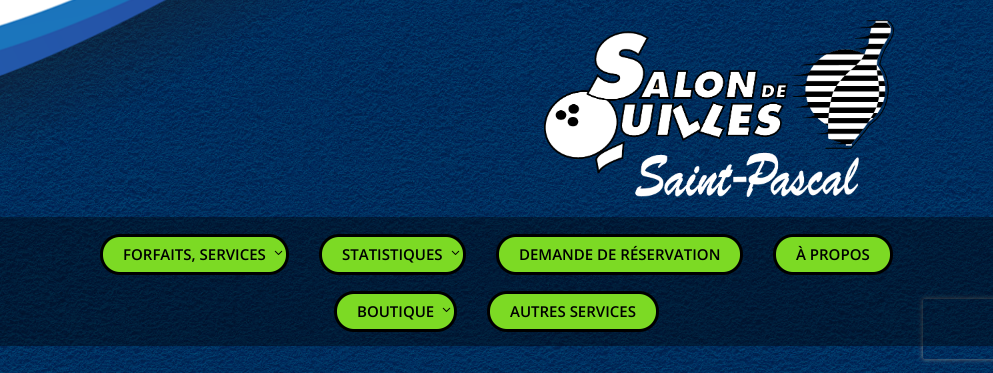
#include <cairo.h>
#include <math.h>
#include <stddef.h>

static cairo_t *ctx;

static void use_color(int r, int g, int b) {
    cairo_set_source_rgb(ctx, r / 255.0, g / 255.0, b / 255.0);
}

static void round_rect(double x, double y, double w, double h, double r) {
    cairo_new_sub_path(ctx);
    cairo_arc(ctx, x + w - r, y + h - r, r, 0, M_PI / 2);
    cairo_arc(ctx, x + r, y + h - r, r, M_PI / 2, M_PI);
    cairo_arc(ctx, x + r, y + r, r, M_PI, 1.5 * M_PI);
    cairo_arc(ctx, x + w - r, y + r, r, 1.5 * M_PI, 2 * M_PI);
    cairo_close_path(ctx);
}

static void shadow(double x, double y, double w, double h, double r, double blur, double alpha) {
    cairo_push_group_with_content(ctx, CAIRO_CONTENT_ALPHA);
    cairo_set_operator(ctx, CAIRO_OPERATOR_SOURCE);
    for (int i = 15; i >= -15 && fmin(w, h) + blur * i / 3 > 0; i -= 2) {
        double e = blur * i / 6;
        cairo_set_source_rgba(ctx, 0, 0, 0, alpha * erfc((i - 1) / 8.5) / 2);
        round_rect(x - e, y - e, w + 2 * e, h + 2 * e, fmax(0, fmin(r + e + blur * .6, fmin(w, h) / 2 + e)));
        cairo_fill(ctx);
    }
    cairo_pattern_t *soft = cairo_pop_group(ctx);
    cairo_mask(ctx, soft);
    cairo_pattern_destroy(soft);
}

static void picture(const char *path, double x, double y, double w, double h) {
    cairo_surface_t *image = cairo_image_surface_create_from_png(path);
    cairo_save(ctx);
    cairo_set_source_surface(ctx, image, x, y);
    cairo_rectangle(ctx, x, y, w, h);
    cairo_fill(ctx);
    cairo_restore(ctx);
    cairo_surface_destroy(image);
}

int main(void) {
    cairo_surface_t *surface = cairo_image_surface_create(CAIRO_FORMAT_RGB24, 993, 373);
    ctx = cairo_create(surface);
    cairo_font_options_t *options = cairo_font_options_create();
    cairo_font_options_set_hint_metrics(options, CAIRO_HINT_METRICS_OFF);
    cairo_font_options_set_hint_style(options, CAIRO_HINT_STYLE_NONE);
    cairo_set_font_options(ctx, options);
    cairo_set_miter_limit(ctx, 4);
    use_color(255, 255, 255);
    cairo_paint(ctx);
    picture("img1.png", 0, 0, 993, 373);
    picture("img2.png", 0, 0, 303, 153);
    picture("img3.png", 544, 20, 350, 177);
    cairo_save(ctx);
    cairo_set_fill_rule(ctx, CAIRO_FILL_RULE_EVEN_ODD);
    cairo_new_path(ctx);
    cairo_move_to(ctx, 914, 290);
    cairo_line_to(ctx, 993, 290);
    cairo_line_to(ctx, 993, 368);
    cairo_line_to(ctx, 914, 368);
    cairo_close_path(ctx);
    cairo_move_to(ctx, 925, 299);
    cairo_line_to(ctx, 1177, 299);
    cairo_curve_to(ctx, 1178, 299, 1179, 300, 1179, 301);
    cairo_line_to(ctx, 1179, 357);
    cairo_curve_to(ctx, 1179, 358, 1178, 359, 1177, 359);
    cairo_line_to(ctx, 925, 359);
    cairo_curve_to(ctx, 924, 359, 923, 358, 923, 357);
    cairo_line_to(ctx, 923, 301);
    cairo_curve_to(ctx, 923, 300, 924, 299, 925, 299);
    cairo_close_path(ctx);
    cairo_clip(ctx);
    use_color(128, 128, 128);
    shadow(923, 299, 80, 60, 2, 2.5, 1);
    cairo_restore(ctx);
    cairo_set_source_rgba(ctx, 0, 0, 0, 0.4);
    cairo_rectangle(ctx, 0, 217, 993, 129);
    cairo_fill(ctx);
    use_color(124, 218, 36);
    round_rect(101.5, 235.5, 186, 38, 18.5);
    cairo_fill_preserve(ctx);
    use_color(0, 0, 0);
    cairo_set_line_width(ctx, 3);
    cairo_stroke(ctx);
    cairo_select_font_face(ctx, "Open Sans SemiBold", CAIRO_FONT_SLANT_NORMAL, CAIRO_FONT_WEIGHT_NORMAL);
    cairo_set_font_size(ctx, 15);
    cairo_move_to(ctx, 123, 260);
    cairo_show_text(ctx, "FORFAITS, SERVICES");
    picture("img4.png", 274, 250, 9, 5);
    use_color(124, 218, 36);
    round_rect(320.5, 235.5, 144, 38, 18.5);
    cairo_fill_preserve(ctx);
    use_color(0, 0, 0);
    cairo_stroke(ctx);
    cairo_move_to(ctx, 342, 260);
    cairo_show_text(ctx, "STATISTIQUES");
    picture("img4.png", 451, 250, 9, 5);
    use_color(124, 218, 36);
    round_rect(497.5, 235.5, 244, 38, 18.5);
    cairo_fill_preserve(ctx);
    use_color(0, 0, 0);
    cairo_stroke(ctx);
    cairo_move_to(ctx, 519, 260);
    cairo_show_text(ctx, "DEMANDE DE RÉSERVATION");
    use_color(124, 218, 36);
    round_rect(774.5, 235.5, 117, 38, 18.5);
    cairo_fill_preserve(ctx);
    use_color(0, 0, 0);
    cairo_stroke(ctx);
    cairo_move_to(ctx, 796, 260);
    cairo_show_text(ctx, "À PROPOS");
    use_color(124, 218, 36);
    round_rect(335.5, 292.5, 120, 38, 18.5);
    cairo_fill_preserve(ctx);
    use_color(0, 0, 0);
    cairo_stroke(ctx);
    cairo_move_to(ctx, 357, 317);
    cairo_show_text(ctx, "BOUTIQUE");
    picture("img4.png", 442, 307, 9, 5);
    use_color(124, 218, 36);
    round_rect(488.5, 292.5, 169, 38, 18.5);
    cairo_fill_preserve(ctx);
    use_color(0, 0, 0);
    cairo_stroke(ctx);
    cairo_move_to(ctx, 510, 317);
    cairo_show_text(ctx, "AUTRES SERVICES");
    cairo_surface_write_to_png(surface, "result.png");
    cairo_font_options_destroy(options);
    cairo_destroy(ctx);
    cairo_surface_destroy(surface);
    return 0;
}
